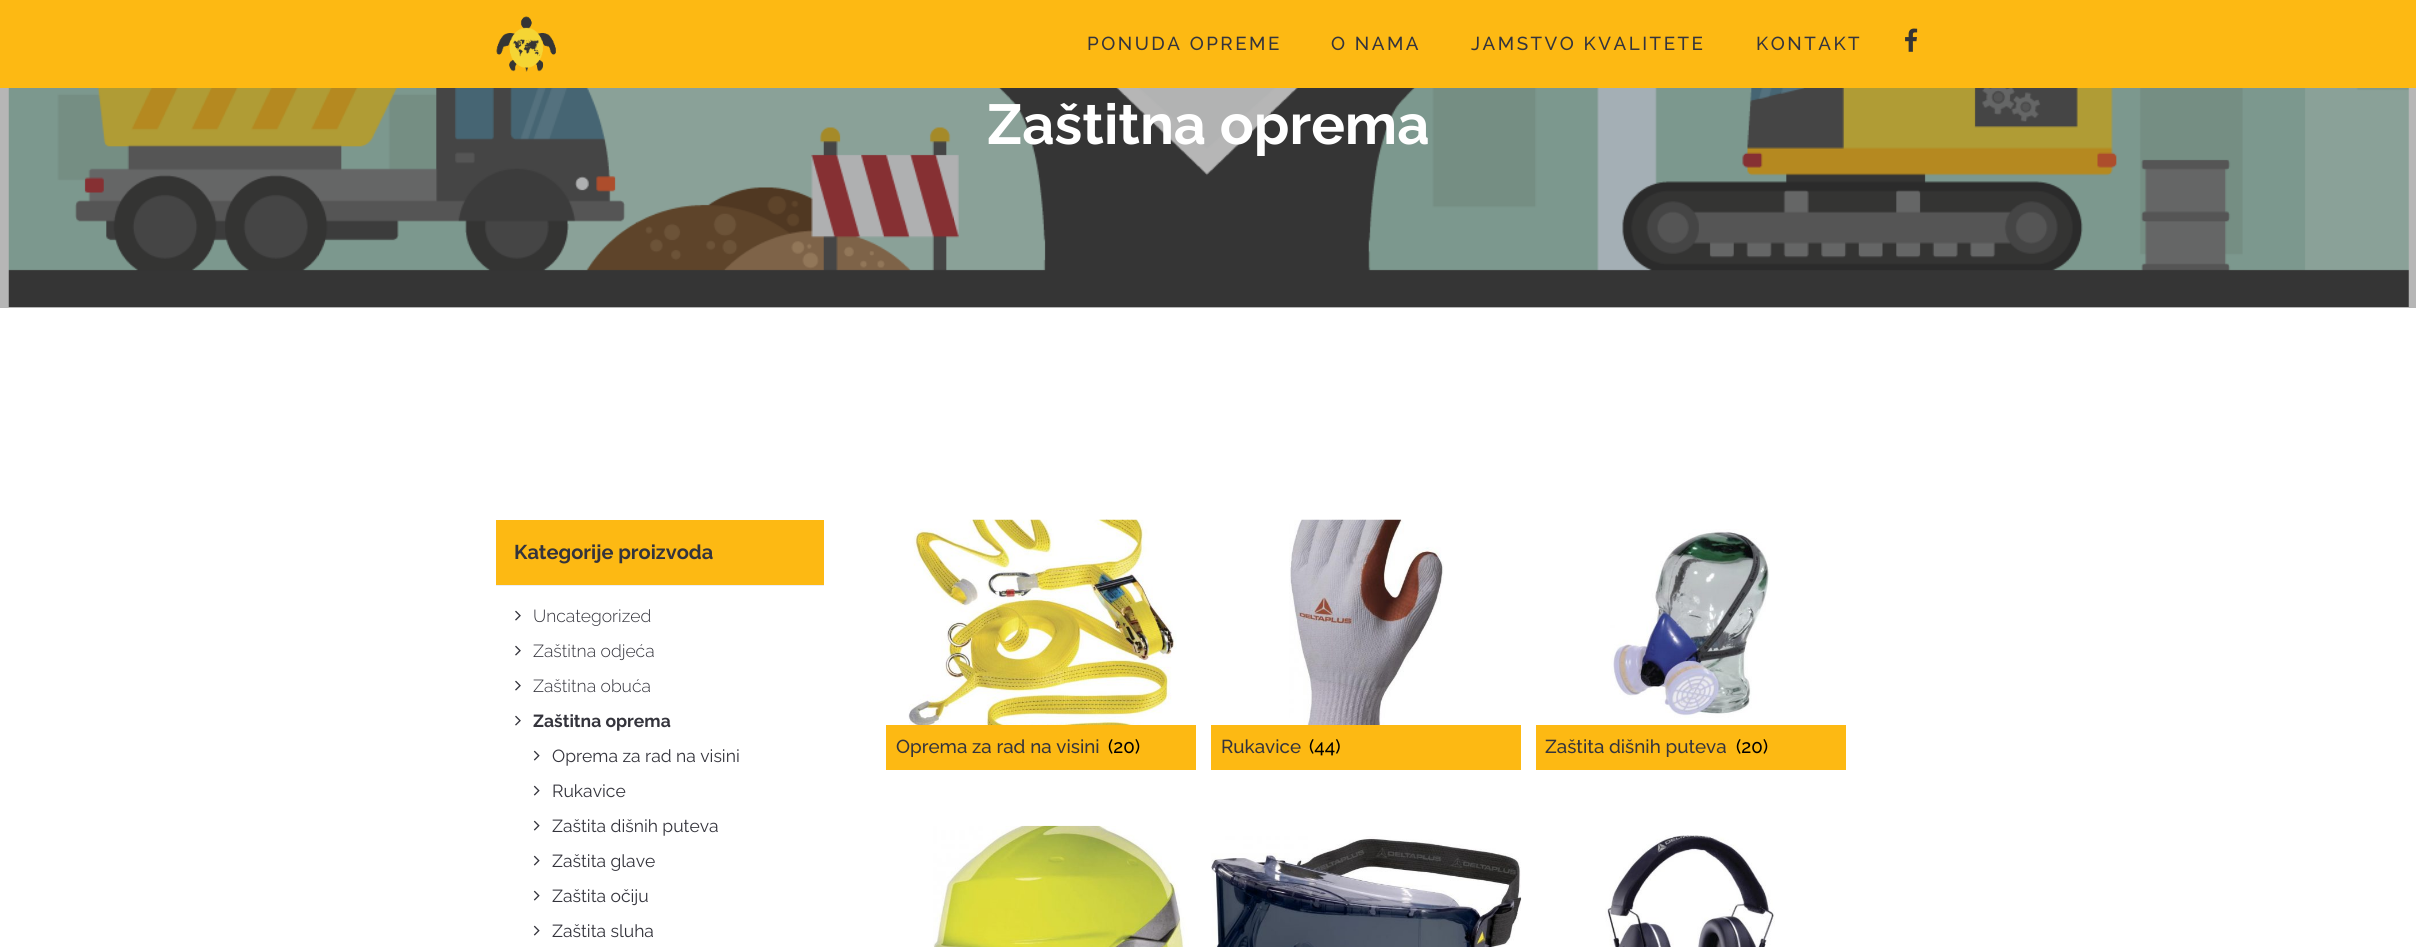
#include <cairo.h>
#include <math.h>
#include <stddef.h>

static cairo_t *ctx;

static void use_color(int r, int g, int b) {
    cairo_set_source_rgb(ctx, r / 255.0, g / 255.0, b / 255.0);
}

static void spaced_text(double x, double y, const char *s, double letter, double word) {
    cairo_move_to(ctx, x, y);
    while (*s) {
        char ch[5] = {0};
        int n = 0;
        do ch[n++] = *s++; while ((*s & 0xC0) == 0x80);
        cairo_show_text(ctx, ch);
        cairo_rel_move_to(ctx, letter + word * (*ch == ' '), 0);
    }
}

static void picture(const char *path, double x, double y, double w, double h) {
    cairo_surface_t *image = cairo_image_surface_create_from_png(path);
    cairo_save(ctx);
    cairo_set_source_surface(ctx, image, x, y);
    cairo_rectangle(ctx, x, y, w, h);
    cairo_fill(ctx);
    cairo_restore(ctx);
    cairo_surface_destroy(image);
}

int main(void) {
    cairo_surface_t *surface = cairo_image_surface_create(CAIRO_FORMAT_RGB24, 2416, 947);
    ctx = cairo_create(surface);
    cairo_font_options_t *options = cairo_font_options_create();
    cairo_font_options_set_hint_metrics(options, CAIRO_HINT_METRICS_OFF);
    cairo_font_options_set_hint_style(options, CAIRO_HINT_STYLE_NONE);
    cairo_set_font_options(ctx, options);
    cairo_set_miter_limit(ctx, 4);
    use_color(255, 255, 255);
    cairo_paint(ctx);
    use_color(182, 182, 182);
    cairo_rectangle(ctx, 0, 88, 2416, 220);
    cairo_fill(ctx);
    use_color(253, 185, 19);
    cairo_rectangle(ctx, 0, 0, 2416, 88);
    cairo_fill(ctx);
    picture("img1.png", 496, 16, 60, 56);
    picture("img2.png", 1905, 28, 13, 24);
    cairo_select_font_face(ctx, "Raleway Medium", CAIRO_FONT_SLANT_NORMAL, CAIRO_FONT_WEIGHT_NORMAL);
    cairo_set_font_size(ctx, 18.75);
    use_color(52, 52, 60);
    spaced_text(1087, 50, "PONUDA OPREME", 2.5, 0);
    spaced_text(1331, 50, "O NAMA", 2.5, 0);
    spaced_text(1471, 50, "JAMSTVO KVALITETE", 2.5, 0);
    spaced_text(1756, 50, "KONTAKT", 2.5, 0);
    picture("img3.png", 8, 88, 2401, 219);
    cairo_select_font_face(ctx, "Raleway", CAIRO_FONT_SLANT_NORMAL, CAIRO_FONT_WEIGHT_BOLD);
    cairo_set_font_size(ctx, 56.25);
    use_color(255, 255, 255);
    cairo_move_to(ctx, 987, 144);
    cairo_show_text(ctx, "Zaštitna oprema");
    use_color(253, 185, 19);
    cairo_rectangle(ctx, 496, 520, 328, 65);
    cairo_fill(ctx);
    use_color(235, 238, 246);
    cairo_rectangle(ctx, 496, 585, 328, 1);
    cairo_fill(ctx);
    cairo_set_font_size(ctx, 20);
    use_color(52, 52, 60);
    cairo_move_to(ctx, 514, 559);
    cairo_show_text(ctx, "Kategorije proizvoda");
    picture("img4.png", 515, 610, 6, 11);
    cairo_select_font_face(ctx, "Raleway Light", CAIRO_FONT_SLANT_NORMAL, CAIRO_FONT_WEIGHT_NORMAL);
    cairo_set_font_size(ctx, 17.5);
    cairo_move_to(ctx, 533, 622);
    cairo_show_text(ctx, "Uncategorized");
    picture("img4.png", 515, 645, 6, 11);
    cairo_move_to(ctx, 533, 657);
    cairo_show_text(ctx, "Zaštitna odjeća");
    picture("img4.png", 515, 680, 6, 11);
    cairo_move_to(ctx, 533, 692);
    cairo_show_text(ctx, "Zaštitna obuća");
    picture("img4.png", 515, 715, 6, 11);
    cairo_select_font_face(ctx, "Raleway", CAIRO_FONT_SLANT_NORMAL, CAIRO_FONT_WEIGHT_BOLD);
    cairo_move_to(ctx, 533, 727);
    cairo_show_text(ctx, "Zaštitna oprema");
    picture("img5.png", 533, 750, 7, 11);
    cairo_select_font_face(ctx, "Raleway", CAIRO_FONT_SLANT_NORMAL, CAIRO_FONT_WEIGHT_NORMAL);
    cairo_move_to(ctx, 552, 762);
    cairo_show_text(ctx, "Oprema za rad na visini");
    picture("img5.png", 533, 785, 7, 11);
    cairo_move_to(ctx, 552, 797);
    cairo_show_text(ctx, "Rukavice");
    picture("img5.png", 533, 820, 7, 11);
    cairo_move_to(ctx, 552, 832);
    cairo_show_text(ctx, "Zaštita dišnih puteva");
    picture("img5.png", 533, 855, 7, 11);
    cairo_move_to(ctx, 552, 867);
    cairo_show_text(ctx, "Zaštita glave");
    picture("img5.png", 533, 890, 7, 11);
    cairo_move_to(ctx, 552, 902);
    cairo_show_text(ctx, "Zaštita očiju");
    picture("img5.png", 533, 925, 7, 11);
    cairo_move_to(ctx, 552, 937);
    cairo_show_text(ctx, "Zaštita sluha");
    picture("img6.png", 908, 519, 269, 206);
    use_color(253, 185, 19);
    cairo_rectangle(ctx, 886, 725, 310, 45);
    cairo_fill(ctx);
    cairo_select_font_face(ctx, "Raleway Medium", CAIRO_FONT_SLANT_NORMAL, CAIRO_FONT_WEIGHT_NORMAL);
    cairo_set_font_size(ctx, 18.75);
    use_color(52, 52, 60);
    cairo_move_to(ctx, 896, 753);
    cairo_show_text(ctx, "Oprema za rad na visini");
    use_color(0, 0, 0);
    cairo_move_to(ctx, 1108, 753);
    cairo_show_text(ctx, "(20)");
    picture("img7.png", 1289, 519, 155, 206);
    use_color(253, 185, 19);
    cairo_rectangle(ctx, 1211, 725, 310, 45);
    cairo_fill(ctx);
    use_color(52, 52, 60);
    cairo_move_to(ctx, 1221, 753);
    cairo_show_text(ctx, "Rukavice");
    use_color(0, 0, 0);
    cairo_move_to(ctx, 1309, 753);
    cairo_show_text(ctx, "(44)");
    picture("img8.png", 1610, 529, 160, 189);
    use_color(253, 185, 19);
    cairo_rectangle(ctx, 1536, 725, 310, 45);
    cairo_fill(ctx);
    use_color(52, 52, 60);
    cairo_move_to(ctx, 1545, 753);
    cairo_show_text(ctx, "Zaštita dišnih puteva");
    use_color(0, 0, 0);
    cairo_move_to(ctx, 1736, 753);
    cairo_show_text(ctx, "(20)");
    picture("img9.png", 933, 825, 256, 122);
    picture("img10.png", 1211, 836, 311, 111);
    picture("img11.png", 1605, 835, 170, 112);
    cairo_surface_write_to_png(surface, "result.png");
    cairo_font_options_destroy(options);
    cairo_destroy(ctx);
    cairo_surface_destroy(surface);
    return 0;
}
